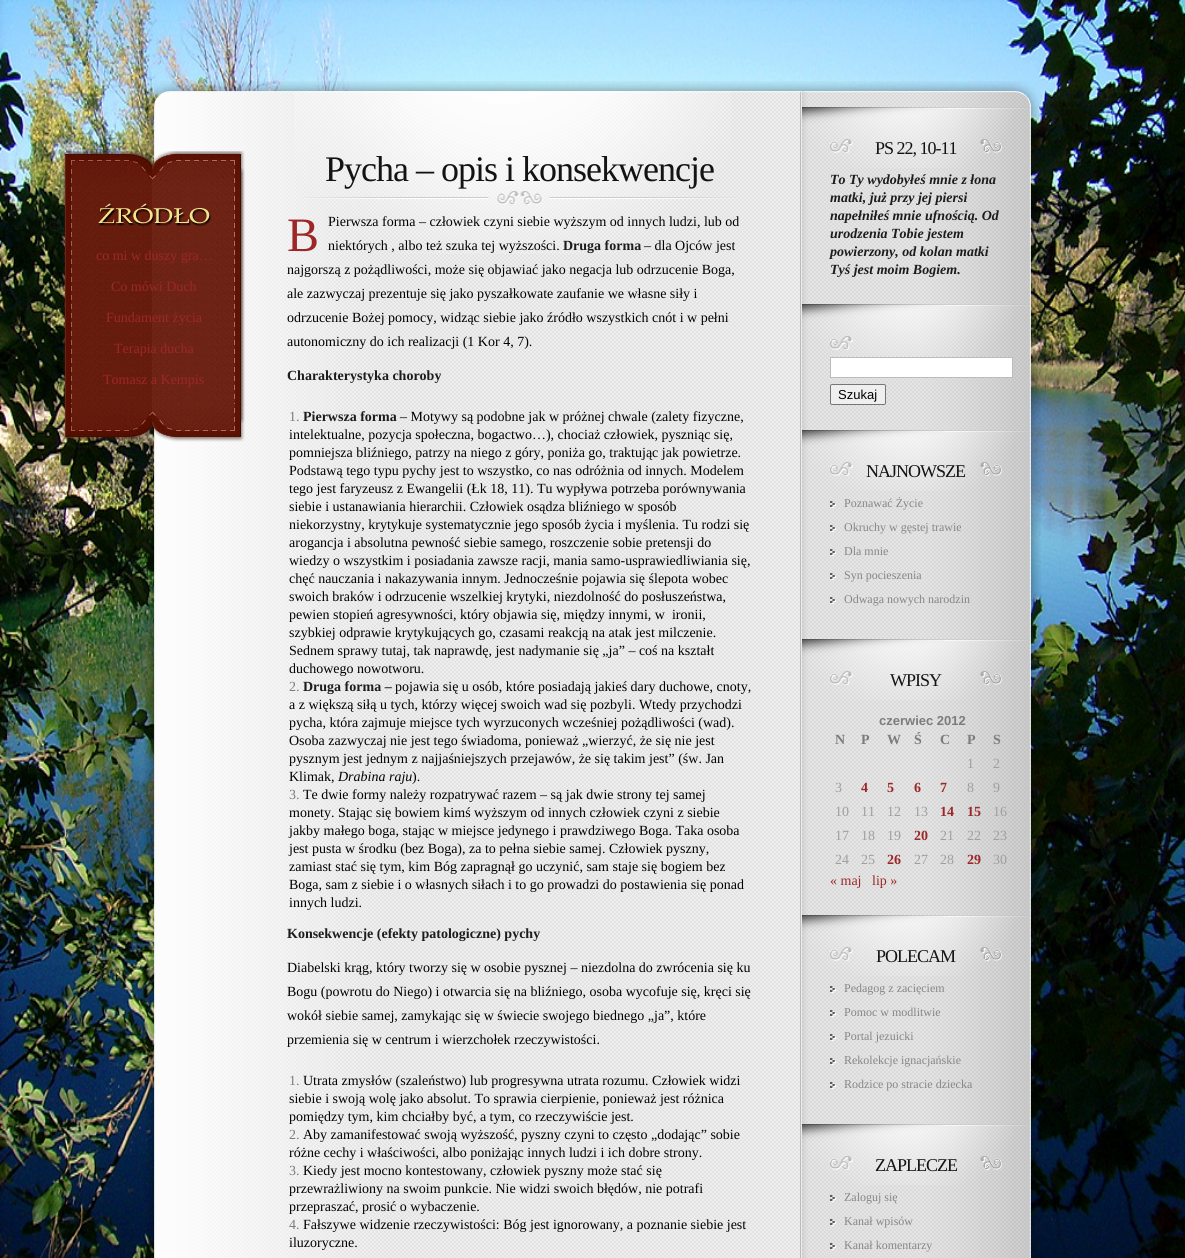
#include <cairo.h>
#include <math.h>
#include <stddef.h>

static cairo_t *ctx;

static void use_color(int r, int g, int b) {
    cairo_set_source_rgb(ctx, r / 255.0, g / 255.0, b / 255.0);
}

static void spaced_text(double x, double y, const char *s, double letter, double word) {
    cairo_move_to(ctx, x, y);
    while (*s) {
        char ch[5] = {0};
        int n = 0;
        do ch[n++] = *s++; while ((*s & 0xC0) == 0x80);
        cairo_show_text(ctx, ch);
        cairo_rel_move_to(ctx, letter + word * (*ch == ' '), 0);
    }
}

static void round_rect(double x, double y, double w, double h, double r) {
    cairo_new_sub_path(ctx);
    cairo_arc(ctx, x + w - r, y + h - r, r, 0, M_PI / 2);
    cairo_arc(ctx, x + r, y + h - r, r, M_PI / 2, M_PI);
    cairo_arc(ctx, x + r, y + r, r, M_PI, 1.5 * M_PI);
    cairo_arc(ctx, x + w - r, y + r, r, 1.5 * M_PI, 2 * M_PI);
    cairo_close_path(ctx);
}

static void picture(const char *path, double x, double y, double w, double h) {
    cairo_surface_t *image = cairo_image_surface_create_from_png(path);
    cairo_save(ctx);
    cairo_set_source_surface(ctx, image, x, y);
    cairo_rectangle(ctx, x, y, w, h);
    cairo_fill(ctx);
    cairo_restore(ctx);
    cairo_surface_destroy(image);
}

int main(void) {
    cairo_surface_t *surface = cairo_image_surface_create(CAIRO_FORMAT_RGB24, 1185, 1258);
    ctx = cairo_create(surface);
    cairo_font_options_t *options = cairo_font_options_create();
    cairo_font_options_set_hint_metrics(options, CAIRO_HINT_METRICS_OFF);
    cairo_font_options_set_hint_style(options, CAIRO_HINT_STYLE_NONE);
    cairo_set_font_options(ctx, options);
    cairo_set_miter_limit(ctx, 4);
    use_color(255, 255, 255);
    cairo_paint(ctx);
    picture("img1.png", 0, 0, 1185, 1258);
    picture("img2.png", 145, 81, 896, 26);
    picture("img7.png", 144, 107, 897, 1151);
    picture("img3.png", 63, 151, 182, 32);
    picture("img4.png", 63, 183, 182, 221);
    picture("img5.png", 98, 203, 114, 24);
    cairo_select_font_face(ctx, "Liberation Serif", CAIRO_FONT_SLANT_NORMAL, CAIRO_FONT_WEIGHT_NORMAL);
    cairo_set_font_size(ctx, 14);
    use_color(157, 39, 39);
    cairo_move_to(ctx, 96, 260);
    cairo_show_text(ctx, "co mi w duszy gra…");
    cairo_move_to(ctx, 111, 291);
    cairo_show_text(ctx, "Co mówi Duch");
    cairo_move_to(ctx, 106, 322);
    cairo_show_text(ctx, "Fundament życia");
    cairo_move_to(ctx, 114, 353);
    cairo_show_text(ctx, "Terapia ducha");
    cairo_move_to(ctx, 103, 384);
    cairo_show_text(ctx, "Tomasz a Kempis");
    picture("img6.png", 63, 404, 182, 38);
    picture("img8.png", 294, 91, 437, 163);
    picture("img9.png", 301, 191, 436, 14);
    cairo_set_font_size(ctx, 36);
    use_color(19, 19, 19);
    spaced_text(325, 181, "Pycha – opis i konsekwencje", -1, 0);
    cairo_set_font_size(ctx, 48);
    use_color(157, 39, 39);
    cairo_move_to(ctx, 287, 251);
    cairo_show_text(ctx, "B");
    cairo_set_font_size(ctx, 14);
    use_color(0, 0, 0);
    cairo_move_to(ctx, 328, 226);
    cairo_show_text(ctx, "Pierwsza forma – człowiek czyni siebie wyższym od innych ludzi, lub od");
    cairo_move_to(ctx, 328, 250);
    cairo_show_text(ctx, "niektórych , albo też szuka tej wyższości.");
    cairo_select_font_face(ctx, "Liberation Serif", CAIRO_FONT_SLANT_NORMAL, CAIRO_FONT_WEIGHT_BOLD);
    use_color(28, 28, 28);
    cairo_move_to(ctx, 563, 250);
    cairo_show_text(ctx, "Druga forma");
    cairo_select_font_face(ctx, "Liberation Serif", CAIRO_FONT_SLANT_NORMAL, CAIRO_FONT_WEIGHT_NORMAL);
    use_color(0, 0, 0);
    cairo_move_to(ctx, 644, 250);
    cairo_show_text(ctx, "– dla Ojców jest");
    cairo_move_to(ctx, 287, 274);
    cairo_show_text(ctx, "najgorszą z pożądliwości, może się objawiać jako negacja lub odrzucenie Boga,");
    cairo_move_to(ctx, 287, 298);
    cairo_show_text(ctx, "ale zazwyczaj prezentuje się jako pyszałkowate zaufanie we własne siły i");
    cairo_move_to(ctx, 287, 322);
    cairo_show_text(ctx, "odrzucenie Bożej pomocy, widząc siebie jako źródło wszystkich cnót i w pełni");
    cairo_move_to(ctx, 287, 346);
    cairo_show_text(ctx, "autonomiczny do ich realizacji (1 Kor 4, 7).");
    cairo_select_font_face(ctx, "Liberation Serif", CAIRO_FONT_SLANT_NORMAL, CAIRO_FONT_WEIGHT_BOLD);
    use_color(28, 28, 28);
    cairo_move_to(ctx, 287, 380);
    cairo_show_text(ctx, "Charakterystyka choroby");
    cairo_select_font_face(ctx, "Liberation Serif", CAIRO_FONT_SLANT_NORMAL, CAIRO_FONT_WEIGHT_NORMAL);
    use_color(124, 124, 124);
    cairo_move_to(ctx, 289, 421);
    cairo_show_text(ctx, "1.");
    cairo_select_font_face(ctx, "Liberation Serif", CAIRO_FONT_SLANT_NORMAL, CAIRO_FONT_WEIGHT_BOLD);
    use_color(28, 28, 28);
    cairo_move_to(ctx, 303, 421);
    cairo_show_text(ctx, "Pierwsza forma");
    cairo_select_font_face(ctx, "Liberation Serif", CAIRO_FONT_SLANT_NORMAL, CAIRO_FONT_WEIGHT_NORMAL);
    use_color(0, 0, 0);
    cairo_move_to(ctx, 400, 421);
    cairo_show_text(ctx, "– Motywy są podobne jak w próżnej chwale (zalety fizyczne,");
    cairo_move_to(ctx, 289, 439);
    cairo_show_text(ctx, "intelektualne, pozycja społeczna, bogactwo…), chociaż człowiek, pyszniąc się,");
    cairo_move_to(ctx, 289, 457);
    cairo_show_text(ctx, "pomniejsza bliźniego, patrzy na niego z góry, poniża go, traktując jak powietrze.");
    cairo_move_to(ctx, 289, 475);
    cairo_show_text(ctx, "Podstawą tego typu pychy jest to wszystko, co nas odróżnia od innych. Modelem");
    cairo_move_to(ctx, 289, 493);
    cairo_show_text(ctx, "tego jest faryzeusz z Ewangelii (Łk 18, 11). Tu wypływa potrzeba porównywania");
    cairo_move_to(ctx, 289, 511);
    cairo_show_text(ctx, "siebie i ustanawiania hierarchii. Człowiek osądza bliźniego w sposób");
    cairo_move_to(ctx, 289, 529);
    cairo_show_text(ctx, "niekorzystny, krytykuje systematycznie jego sposób życia i myślenia. Tu rodzi się");
    cairo_move_to(ctx, 289, 547);
    cairo_show_text(ctx, "arogancja i absolutna pewność siebie samego, roszczenie sobie pretensji do");
    cairo_move_to(ctx, 289, 565);
    cairo_show_text(ctx, "wiedzy o wszystkim i posiadania zawsze racji, mania samo-usprawiedliwiania się,");
    cairo_move_to(ctx, 289, 583);
    cairo_show_text(ctx, "chęć nauczania i nakazywania innym. Jednocześnie pojawia się ślepota wobec");
    cairo_move_to(ctx, 289, 601);
    cairo_show_text(ctx, "swoich braków i odrzucenie wszelkiej krytyki, niezdolność do posłuszeństwa,");
    cairo_move_to(ctx, 289, 619);
    cairo_show_text(ctx, "pewien stopień agresywności, który objawia się, między innymi, w  ironii,");
    cairo_move_to(ctx, 289, 637);
    cairo_show_text(ctx, "szybkiej odprawie krytykujących go, czasami reakcją na atak jest milczenie.");
    cairo_move_to(ctx, 289, 655);
    cairo_show_text(ctx, "Sednem sprawy tutaj, tak naprawdę, jest nadymanie się „ja” – coś na kształt");
    cairo_move_to(ctx, 289, 673);
    cairo_show_text(ctx, "duchowego nowotworu.");
    use_color(124, 124, 124);
    cairo_move_to(ctx, 289, 691);
    cairo_show_text(ctx, "2.");
    cairo_select_font_face(ctx, "Liberation Serif", CAIRO_FONT_SLANT_NORMAL, CAIRO_FONT_WEIGHT_BOLD);
    use_color(28, 28, 28);
    cairo_move_to(ctx, 303, 691);
    cairo_show_text(ctx, "Druga forma –");
    cairo_select_font_face(ctx, "Liberation Serif", CAIRO_FONT_SLANT_NORMAL, CAIRO_FONT_WEIGHT_NORMAL);
    use_color(0, 0, 0);
    cairo_move_to(ctx, 395, 691);
    cairo_show_text(ctx, "pojawia się u osób, które posiadają jakieś dary duchowe, cnoty,");
    cairo_move_to(ctx, 289, 709);
    cairo_show_text(ctx, "a z większą siłą u tych, którzy więcej swoich wad się pozbyli. Wtedy przychodzi");
    cairo_move_to(ctx, 289, 727);
    cairo_show_text(ctx, "pycha, która zajmuje miejsce tych wyrzuconych wcześniej pożądliwości (wad).");
    cairo_move_to(ctx, 289, 745);
    cairo_show_text(ctx, "Osoba zazwyczaj nie jest tego świadoma, ponieważ „wierzyć, że się nie jest");
    cairo_move_to(ctx, 289, 763);
    cairo_show_text(ctx, "pysznym jest jednym z najjaśniejszych przejawów, że się takim jest” (św. Jan");
    cairo_move_to(ctx, 289, 781);
    cairo_show_text(ctx, "Klimak,");
    cairo_select_font_face(ctx, "Liberation Serif", CAIRO_FONT_SLANT_ITALIC, CAIRO_FONT_WEIGHT_NORMAL);
    cairo_move_to(ctx, 338, 781);
    cairo_show_text(ctx, "Drabina raju");
    cairo_select_font_face(ctx, "Liberation Serif", CAIRO_FONT_SLANT_NORMAL, CAIRO_FONT_WEIGHT_NORMAL);
    cairo_move_to(ctx, 412, 781);
    cairo_show_text(ctx, ").");
    use_color(124, 124, 124);
    cairo_move_to(ctx, 289, 799);
    cairo_show_text(ctx, "3.");
    use_color(0, 0, 0);
    cairo_move_to(ctx, 303, 799);
    cairo_show_text(ctx, "Te dwie formy należy rozpatrywać razem – są jak dwie strony tej samej");
    cairo_move_to(ctx, 289, 817);
    cairo_show_text(ctx, "monety. Stając się bowiem kimś wyższym od innych człowiek czyni z siebie");
    cairo_move_to(ctx, 289, 835);
    cairo_show_text(ctx, "jakby małego boga, stając w miejsce jedynego i prawdziwego Boga. Taka osoba");
    cairo_move_to(ctx, 289, 853);
    cairo_show_text(ctx, "jest pusta w środku (bez Boga), za to pełna siebie samej. Człowiek pyszny,");
    cairo_move_to(ctx, 289, 871);
    cairo_show_text(ctx, "zamiast stać się tym, kim Bóg zapragnął go uczynić, sam staje się bogiem bez");
    cairo_move_to(ctx, 289, 889);
    cairo_show_text(ctx, "Boga, sam z siebie i o własnych siłach i to go prowadzi do postawienia się ponad");
    cairo_move_to(ctx, 289, 907);
    cairo_show_text(ctx, "innych ludzi.");
    cairo_select_font_face(ctx, "Liberation Serif", CAIRO_FONT_SLANT_NORMAL, CAIRO_FONT_WEIGHT_BOLD);
    use_color(28, 28, 28);
    cairo_move_to(ctx, 287, 938);
    cairo_show_text(ctx, "Konsekwencje (efekty patologiczne) pychy");
    cairo_select_font_face(ctx, "Liberation Serif", CAIRO_FONT_SLANT_NORMAL, CAIRO_FONT_WEIGHT_NORMAL);
    use_color(0, 0, 0);
    cairo_move_to(ctx, 287, 972);
    cairo_show_text(ctx, "Diabelski krąg, który tworzy się w osobie pysznej – niezdolna do zwrócenia się ku");
    cairo_move_to(ctx, 287, 996);
    cairo_show_text(ctx, "Bogu (powrotu do Niego) i otwarcia się na bliźniego, osoba wycofuje się, kręci się");
    cairo_move_to(ctx, 287, 1020);
    cairo_show_text(ctx, "wokół siebie samej, zamykając się w świecie swojego biednego „ja”, które");
    cairo_move_to(ctx, 287, 1044);
    cairo_show_text(ctx, "przemienia się w centrum i wierzchołek rzeczywistości.");
    use_color(124, 124, 124);
    cairo_move_to(ctx, 289, 1085);
    cairo_show_text(ctx, "1.");
    use_color(0, 0, 0);
    cairo_move_to(ctx, 303, 1085);
    cairo_show_text(ctx, "Utrata zmysłów (szaleństwo) lub progresywna utrata rozumu. Człowiek widzi");
    cairo_move_to(ctx, 289, 1103);
    cairo_show_text(ctx, "siebie i swoją wolę jako absolut. To sprawia cierpienie, ponieważ jest różnica");
    cairo_move_to(ctx, 289, 1121);
    cairo_show_text(ctx, "pomiędzy tym, kim chciałby być, a tym, co rzeczywiście jest.");
    use_color(124, 124, 124);
    cairo_move_to(ctx, 289, 1139);
    cairo_show_text(ctx, "2.");
    use_color(0, 0, 0);
    cairo_move_to(ctx, 303, 1139);
    cairo_show_text(ctx, "Aby zamanifestować swoją wyższość, pyszny czyni to często „dodając” sobie");
    cairo_move_to(ctx, 289, 1157);
    cairo_show_text(ctx, "różne cechy i właściwości, albo poniżając innych ludzi i ich dobre strony.");
    use_color(124, 124, 124);
    cairo_move_to(ctx, 289, 1175);
    cairo_show_text(ctx, "3.");
    use_color(0, 0, 0);
    cairo_move_to(ctx, 303, 1175);
    cairo_show_text(ctx, "Kiedy jest mocno kontestowany, człowiek pyszny może stać się");
    cairo_move_to(ctx, 289, 1193);
    cairo_show_text(ctx, "przewrażliwiony na swoim punkcie. Nie widzi swoich błędów, nie potrafi");
    cairo_move_to(ctx, 289, 1211);
    cairo_show_text(ctx, "przepraszać, prosić o wybaczenie.");
    use_color(124, 124, 124);
    cairo_move_to(ctx, 289, 1229);
    cairo_show_text(ctx, "4.");
    use_color(0, 0, 0);
    cairo_move_to(ctx, 303, 1229);
    cairo_show_text(ctx, "Fałszywe widzenie rzeczywistości: Bóg jest ignorowany, a poznanie siebie jest");
    cairo_move_to(ctx, 289, 1247);
    cairo_show_text(ctx, "iluzoryczne.");
    picture("img10.png", 802, 107, 226, 61);
    picture("img11.png", 830, 139, 23, 14);
    picture("img12.png", 980, 139, 22, 14);
    cairo_set_font_size(ctx, 18);
    use_color(19, 19, 19);
    spaced_text(875, 154, "PS 22, 10-11", -1, 0);
    cairo_select_font_face(ctx, "Liberation Serif", CAIRO_FONT_SLANT_ITALIC, CAIRO_FONT_WEIGHT_BOLD);
    cairo_set_font_size(ctx, 14);
    use_color(28, 28, 28);
    cairo_move_to(ctx, 830, 184);
    cairo_show_text(ctx, "To Ty wydobyłeś mnie z łona");
    cairo_move_to(ctx, 830, 202);
    cairo_show_text(ctx, "matki, już przy jej piersi");
    cairo_move_to(ctx, 830, 220);
    cairo_show_text(ctx, "napełniłeś mnie ufnością. Od");
    cairo_move_to(ctx, 830, 238);
    cairo_show_text(ctx, "urodzenia Tobie jestem");
    cairo_move_to(ctx, 830, 256);
    cairo_show_text(ctx, "powierzony, od kolan matki");
    cairo_move_to(ctx, 830, 274);
    cairo_show_text(ctx, "Tyś jest moim Bogiem.");
    picture("img13.png", 802, 304, 226, 53);
    picture("img14.png", 830, 336, 23, 14);
    use_color(255, 255, 255);
    cairo_rectangle(ctx, 830.5, 357.5, 182, 20);
    cairo_fill_preserve(ctx);
    use_color(187, 187, 187);
    cairo_set_line_width(ctx, 1);
    cairo_stroke(ctx);
    use_color(239, 239, 239);
    round_rect(830.5, 384.5, 55, 20, 1.5);
    cairo_fill_preserve(ctx);
    use_color(118, 118, 118);
    cairo_stroke(ctx);
    cairo_select_font_face(ctx, "Liberation Sans", CAIRO_FONT_SLANT_NORMAL, CAIRO_FONT_WEIGHT_NORMAL);
    cairo_set_font_size(ctx, 13);
    use_color(0, 0, 0);
    cairo_move_to(ctx, 838, 399);
    cairo_show_text(ctx, "Szukaj");
    picture("img15.png", 802, 430, 226, 61);
    picture("img16.png", 830, 462, 23, 14);
    picture("img17.png", 980, 462, 22, 14);
    cairo_select_font_face(ctx, "Liberation Serif", CAIRO_FONT_SLANT_NORMAL, CAIRO_FONT_WEIGHT_NORMAL);
    cairo_set_font_size(ctx, 18);
    use_color(19, 19, 19);
    spaced_text(866, 477, "NAJNOWSZE", -1, 0);
    picture("img18.png", 830, 501, 6, 7);
    cairo_set_font_size(ctx, 12);
    use_color(134, 134, 134);
    cairo_move_to(ctx, 844, 507);
    cairo_show_text(ctx, "Poznawać Życie");
    picture("img18.png", 830, 525, 6, 7);
    cairo_move_to(ctx, 844, 531);
    cairo_show_text(ctx, "Okruchy w gęstej trawie");
    picture("img18.png", 830, 549, 6, 7);
    cairo_move_to(ctx, 844, 555);
    cairo_show_text(ctx, "Dla mnie");
    picture("img18.png", 830, 573, 6, 7);
    cairo_move_to(ctx, 844, 579);
    cairo_show_text(ctx, "Syn pocieszenia");
    picture("img18.png", 830, 597, 6, 7);
    cairo_move_to(ctx, 844, 603);
    cairo_show_text(ctx, "Odwaga nowych narodzin");
    picture("img10.png", 802, 639, 226, 61);
    picture("img11.png", 830, 671, 23, 14);
    picture("img12.png", 980, 671, 22, 14);
    cairo_set_font_size(ctx, 18);
    use_color(19, 19, 19);
    spaced_text(890, 686, "WPISY", -1, 0);
    cairo_select_font_face(ctx, "Liberation Sans", CAIRO_FONT_SLANT_NORMAL, CAIRO_FONT_WEIGHT_BOLD);
    cairo_set_font_size(ctx, 13);
    use_color(124, 124, 124);
    cairo_move_to(ctx, 879, 725);
    cairo_show_text(ctx, "czerwiec 2012");
    cairo_select_font_face(ctx, "Liberation Serif", CAIRO_FONT_SLANT_NORMAL, CAIRO_FONT_WEIGHT_BOLD);
    cairo_set_font_size(ctx, 14);
    cairo_move_to(ctx, 835, 744);
    cairo_show_text(ctx, "N");
    cairo_move_to(ctx, 861, 744);
    cairo_show_text(ctx, "P");
    cairo_move_to(ctx, 887, 744);
    cairo_show_text(ctx, "W");
    cairo_move_to(ctx, 914, 744);
    cairo_show_text(ctx, "Ś");
    cairo_move_to(ctx, 940, 744);
    cairo_show_text(ctx, "C");
    cairo_move_to(ctx, 967, 744);
    cairo_show_text(ctx, "P");
    cairo_move_to(ctx, 993, 744);
    cairo_show_text(ctx, "S");
    cairo_select_font_face(ctx, "Liberation Serif", CAIRO_FONT_SLANT_NORMAL, CAIRO_FONT_WEIGHT_NORMAL);
    use_color(159, 159, 159);
    cairo_move_to(ctx, 967, 768);
    cairo_show_text(ctx, "1");
    cairo_move_to(ctx, 993, 768);
    cairo_show_text(ctx, "2");
    cairo_move_to(ctx, 835, 792);
    cairo_show_text(ctx, "3");
    cairo_select_font_face(ctx, "Liberation Serif", CAIRO_FONT_SLANT_NORMAL, CAIRO_FONT_WEIGHT_BOLD);
    use_color(157, 39, 39);
    cairo_move_to(ctx, 861, 792);
    cairo_show_text(ctx, "4");
    cairo_move_to(ctx, 887, 792);
    cairo_show_text(ctx, "5");
    cairo_move_to(ctx, 914, 792);
    cairo_show_text(ctx, "6");
    cairo_move_to(ctx, 940, 792);
    cairo_show_text(ctx, "7");
    cairo_select_font_face(ctx, "Liberation Serif", CAIRO_FONT_SLANT_NORMAL, CAIRO_FONT_WEIGHT_NORMAL);
    use_color(159, 159, 159);
    cairo_move_to(ctx, 967, 792);
    cairo_show_text(ctx, "8");
    cairo_move_to(ctx, 993, 792);
    cairo_show_text(ctx, "9");
    cairo_move_to(ctx, 835, 816);
    cairo_show_text(ctx, "10");
    cairo_move_to(ctx, 861, 816);
    cairo_show_text(ctx, "11");
    cairo_move_to(ctx, 887, 816);
    cairo_show_text(ctx, "12");
    cairo_move_to(ctx, 914, 816);
    cairo_show_text(ctx, "13");
    cairo_select_font_face(ctx, "Liberation Serif", CAIRO_FONT_SLANT_NORMAL, CAIRO_FONT_WEIGHT_BOLD);
    use_color(157, 39, 39);
    cairo_move_to(ctx, 940, 816);
    cairo_show_text(ctx, "14");
    cairo_move_to(ctx, 967, 816);
    cairo_show_text(ctx, "15");
    cairo_select_font_face(ctx, "Liberation Serif", CAIRO_FONT_SLANT_NORMAL, CAIRO_FONT_WEIGHT_NORMAL);
    use_color(159, 159, 159);
    cairo_move_to(ctx, 993, 816);
    cairo_show_text(ctx, "16");
    cairo_move_to(ctx, 835, 840);
    cairo_show_text(ctx, "17");
    cairo_move_to(ctx, 861, 840);
    cairo_show_text(ctx, "18");
    cairo_move_to(ctx, 887, 840);
    cairo_show_text(ctx, "19");
    cairo_select_font_face(ctx, "Liberation Serif", CAIRO_FONT_SLANT_NORMAL, CAIRO_FONT_WEIGHT_BOLD);
    use_color(157, 39, 39);
    cairo_move_to(ctx, 914, 840);
    cairo_show_text(ctx, "20");
    cairo_select_font_face(ctx, "Liberation Serif", CAIRO_FONT_SLANT_NORMAL, CAIRO_FONT_WEIGHT_NORMAL);
    use_color(159, 159, 159);
    cairo_move_to(ctx, 940, 840);
    cairo_show_text(ctx, "21");
    cairo_move_to(ctx, 967, 840);
    cairo_show_text(ctx, "22");
    cairo_move_to(ctx, 993, 840);
    cairo_show_text(ctx, "23");
    cairo_move_to(ctx, 835, 864);
    cairo_show_text(ctx, "24");
    cairo_move_to(ctx, 861, 864);
    cairo_show_text(ctx, "25");
    cairo_select_font_face(ctx, "Liberation Serif", CAIRO_FONT_SLANT_NORMAL, CAIRO_FONT_WEIGHT_BOLD);
    use_color(157, 39, 39);
    cairo_move_to(ctx, 887, 864);
    cairo_show_text(ctx, "26");
    cairo_select_font_face(ctx, "Liberation Serif", CAIRO_FONT_SLANT_NORMAL, CAIRO_FONT_WEIGHT_NORMAL);
    use_color(159, 159, 159);
    cairo_move_to(ctx, 914, 864);
    cairo_show_text(ctx, "27");
    cairo_move_to(ctx, 940, 864);
    cairo_show_text(ctx, "28");
    cairo_select_font_face(ctx, "Liberation Serif", CAIRO_FONT_SLANT_NORMAL, CAIRO_FONT_WEIGHT_BOLD);
    use_color(157, 39, 39);
    cairo_move_to(ctx, 967, 864);
    cairo_show_text(ctx, "29");
    cairo_select_font_face(ctx, "Liberation Serif", CAIRO_FONT_SLANT_NORMAL, CAIRO_FONT_WEIGHT_NORMAL);
    use_color(159, 159, 159);
    cairo_move_to(ctx, 993, 864);
    cairo_show_text(ctx, "30");
    use_color(157, 39, 39);
    cairo_move_to(ctx, 830, 885);
    cairo_show_text(ctx, "« maj");
    cairo_move_to(ctx, 872, 885);
    cairo_show_text(ctx, "lip »");
    picture("img10.png", 802, 915, 226, 61);
    picture("img11.png", 830, 947, 23, 14);
    picture("img12.png", 980, 947, 22, 14);
    cairo_set_font_size(ctx, 18);
    use_color(19, 19, 19);
    spaced_text(876, 962, "POLECAM", -1, 0);
    picture("img19.png", 830, 986, 6, 7);
    cairo_set_font_size(ctx, 12);
    use_color(134, 134, 134);
    cairo_move_to(ctx, 844, 992);
    cairo_show_text(ctx, "Pedagog z zacięciem");
    picture("img19.png", 830, 1010, 6, 7);
    cairo_move_to(ctx, 844, 1016);
    cairo_show_text(ctx, "Pomoc w modlitwie");
    picture("img19.png", 830, 1034, 6, 7);
    cairo_move_to(ctx, 844, 1040);
    cairo_show_text(ctx, "Portal jezuicki");
    picture("img19.png", 830, 1058, 6, 7);
    cairo_move_to(ctx, 844, 1064);
    cairo_show_text(ctx, "Rekolekcje ignacjańskie");
    picture("img19.png", 830, 1082, 6, 7);
    cairo_move_to(ctx, 844, 1088);
    cairo_show_text(ctx, "Rodzice po stracie dziecka");
    picture("img20.png", 802, 1124, 226, 61);
    picture("img14.png", 830, 1156, 23, 14);
    picture("img21.png", 980, 1156, 22, 14);
    cairo_set_font_size(ctx, 18);
    use_color(19, 19, 19);
    spaced_text(875, 1171, "ZAPLECZE", -1, 0);
    picture("img22.png", 830, 1195, 6, 7);
    cairo_set_font_size(ctx, 12);
    use_color(134, 134, 134);
    cairo_move_to(ctx, 844, 1201);
    cairo_show_text(ctx, "Zaloguj się");
    picture("img22.png", 830, 1219, 6, 7);
    cairo_move_to(ctx, 844, 1225);
    cairo_show_text(ctx, "Kanał wpisów");
    picture("img22.png", 830, 1243, 6, 7);
    cairo_move_to(ctx, 844, 1249);
    cairo_show_text(ctx, "Kanał komentarzy");
    cairo_surface_write_to_png(surface, "result.png");
    cairo_font_options_destroy(options);
    cairo_destroy(ctx);
    cairo_surface_destroy(surface);
    return 0;
}
